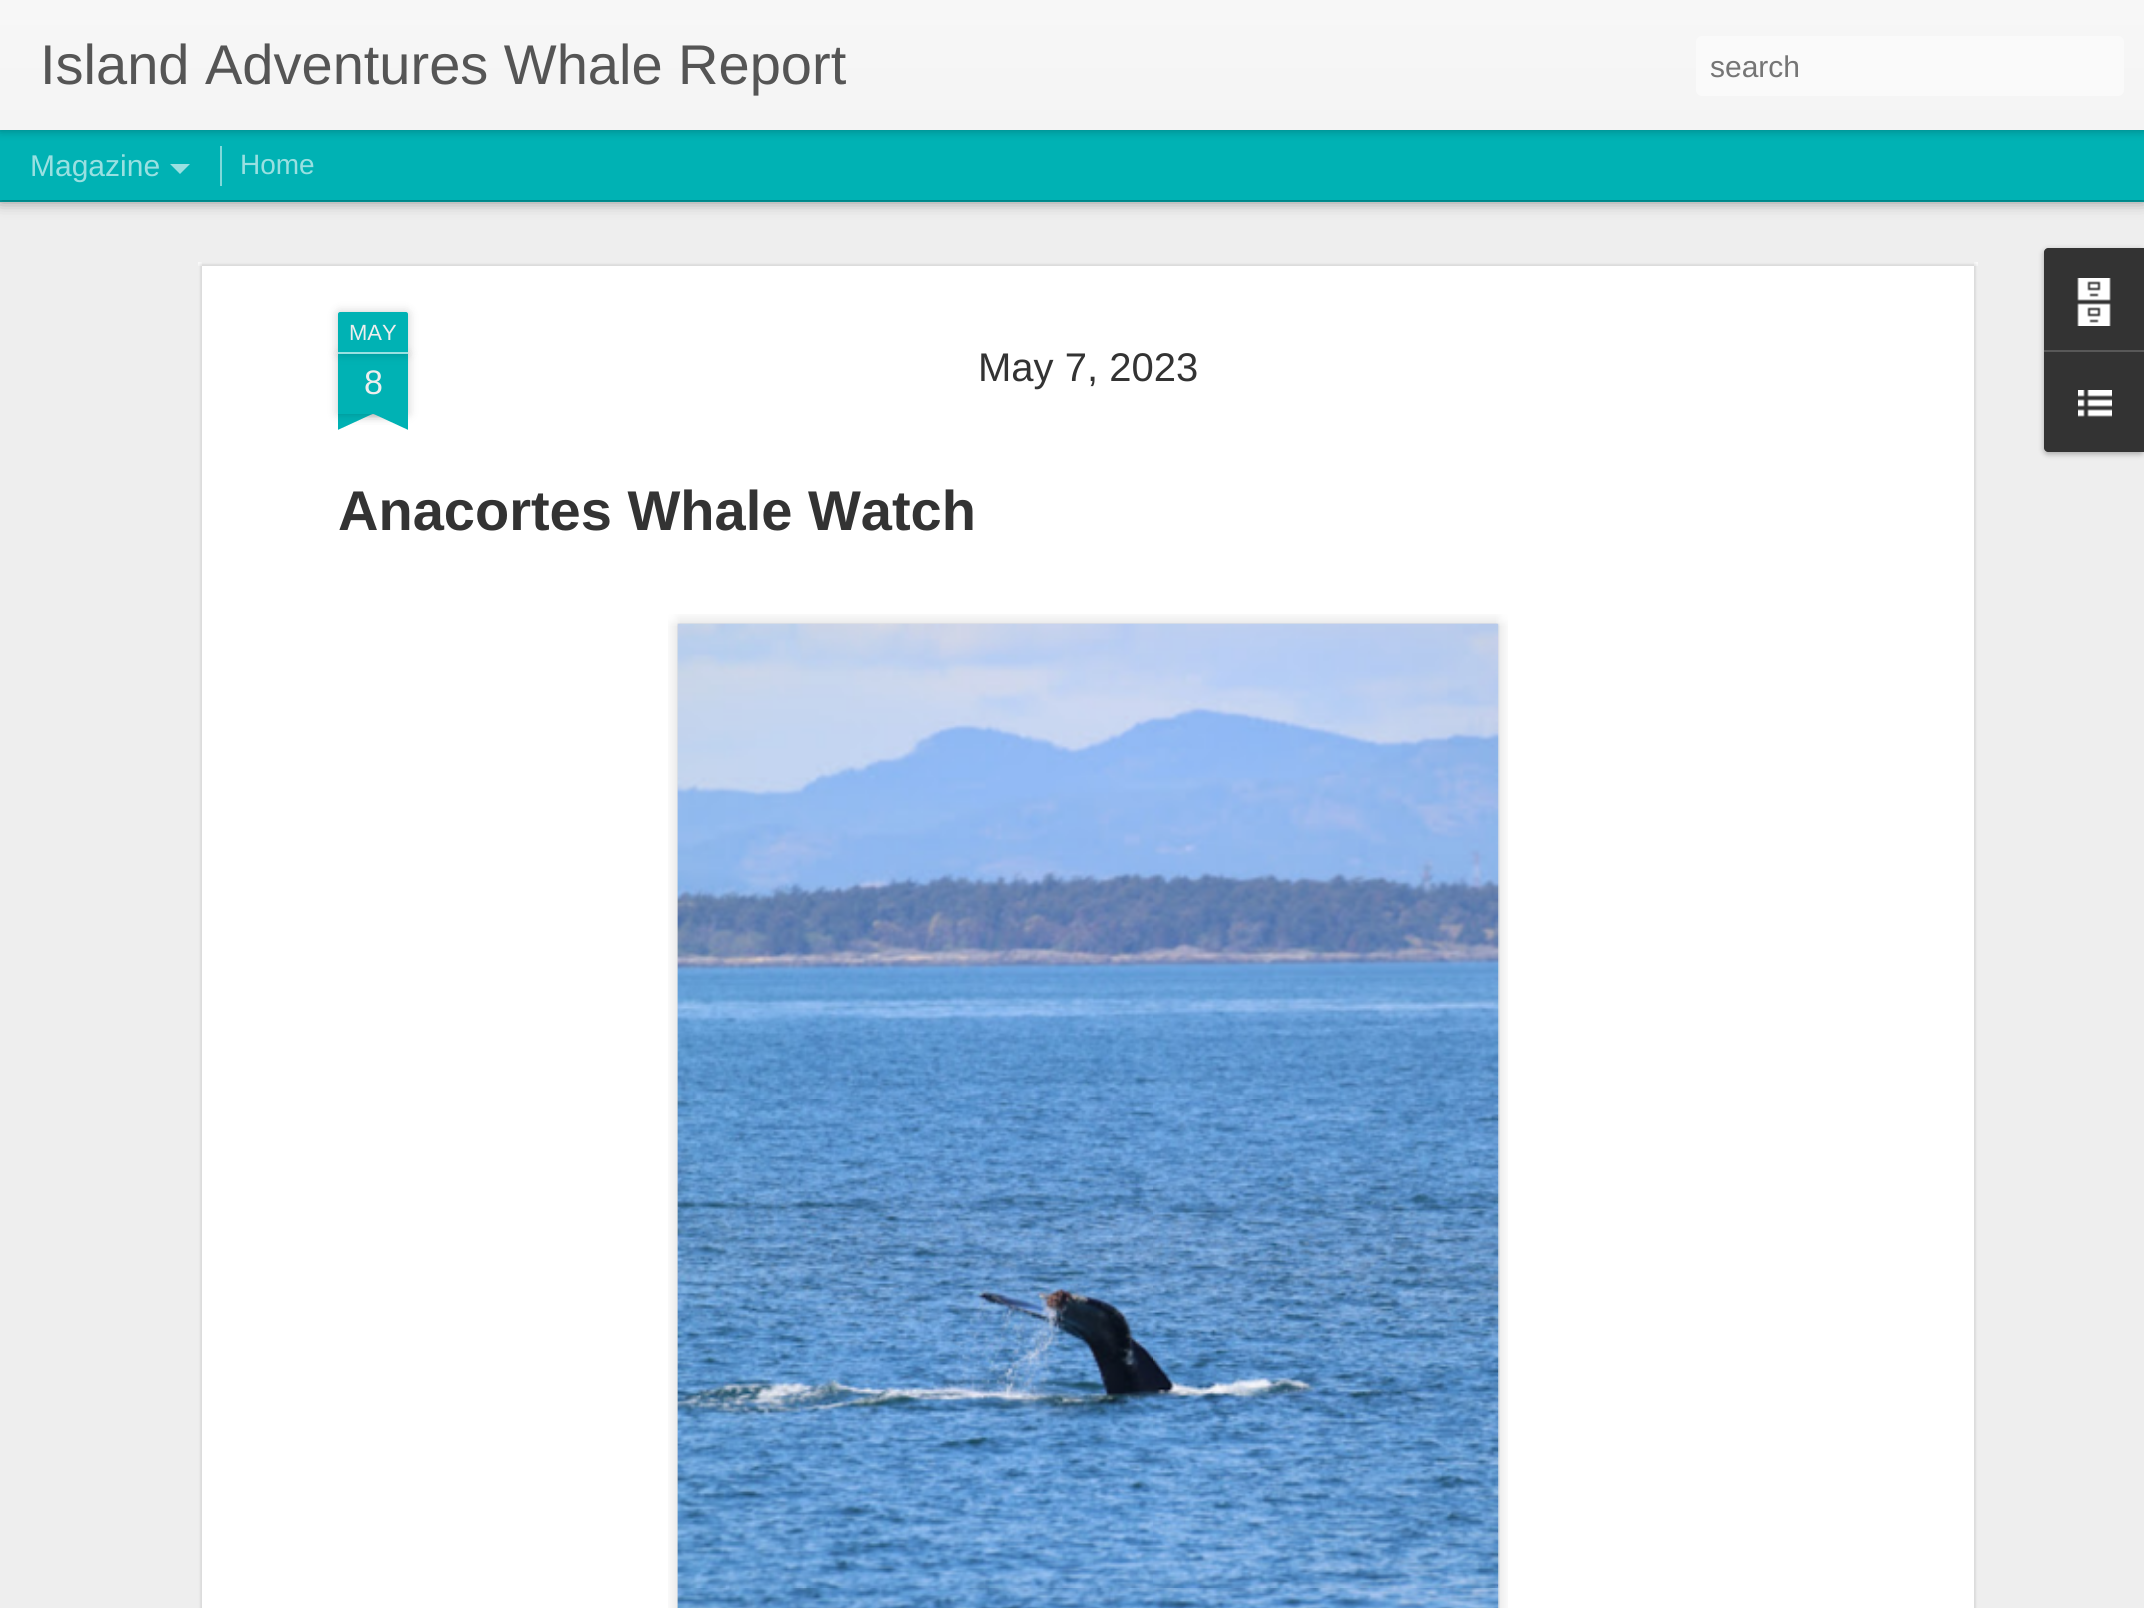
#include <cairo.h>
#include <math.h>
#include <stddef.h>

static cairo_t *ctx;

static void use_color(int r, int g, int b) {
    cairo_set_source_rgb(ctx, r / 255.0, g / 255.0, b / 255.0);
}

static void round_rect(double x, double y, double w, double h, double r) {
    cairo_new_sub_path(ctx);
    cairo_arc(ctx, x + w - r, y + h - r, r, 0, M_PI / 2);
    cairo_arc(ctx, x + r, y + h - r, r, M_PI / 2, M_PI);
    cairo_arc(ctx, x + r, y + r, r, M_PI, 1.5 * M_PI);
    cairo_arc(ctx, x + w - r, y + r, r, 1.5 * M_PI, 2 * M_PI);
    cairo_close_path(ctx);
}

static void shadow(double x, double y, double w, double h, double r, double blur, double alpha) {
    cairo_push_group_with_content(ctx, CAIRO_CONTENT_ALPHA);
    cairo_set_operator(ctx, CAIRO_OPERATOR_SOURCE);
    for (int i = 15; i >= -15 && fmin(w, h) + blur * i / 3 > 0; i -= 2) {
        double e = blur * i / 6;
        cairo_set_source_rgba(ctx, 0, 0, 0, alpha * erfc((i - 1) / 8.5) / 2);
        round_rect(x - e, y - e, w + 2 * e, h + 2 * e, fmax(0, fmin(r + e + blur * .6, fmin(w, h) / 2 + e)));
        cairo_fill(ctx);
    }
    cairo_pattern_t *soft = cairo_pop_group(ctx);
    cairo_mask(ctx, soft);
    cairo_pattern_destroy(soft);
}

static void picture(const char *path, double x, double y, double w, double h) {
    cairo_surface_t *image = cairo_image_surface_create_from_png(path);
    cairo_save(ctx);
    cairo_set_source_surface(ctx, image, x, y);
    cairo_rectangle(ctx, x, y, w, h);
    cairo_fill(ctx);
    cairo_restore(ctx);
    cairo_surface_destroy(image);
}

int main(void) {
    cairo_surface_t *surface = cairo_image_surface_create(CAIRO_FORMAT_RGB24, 2144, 1608);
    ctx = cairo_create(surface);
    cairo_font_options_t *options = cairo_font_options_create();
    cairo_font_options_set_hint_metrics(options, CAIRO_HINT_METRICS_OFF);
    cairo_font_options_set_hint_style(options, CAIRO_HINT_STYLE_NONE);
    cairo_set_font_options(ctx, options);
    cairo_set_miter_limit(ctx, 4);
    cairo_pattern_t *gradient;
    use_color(0, 178, 180);
    cairo_paint(ctx);
    use_color(238, 238, 238);
    cairo_rectangle(ctx, 0, 202, 2144, 1406);
    cairo_fill(ctx);
    use_color(0, 0, 0);
    shadow(0, 130, 2144, 70, 0, 8, 0.5);
    use_color(0, 178, 180);
    cairo_rectangle(ctx, 0, 130, 2144, 70);
    cairo_fill(ctx);
    use_color(0, 0, 0);
    shadow(0, 0, 2144, 130, 0, 5, 0.3);
    gradient = cairo_pattern_create_linear(0, 0, 0, 130);
    cairo_pattern_add_color_stop_rgba(gradient, 0, 0.969, 0.969, 0.969, 1);
    cairo_pattern_add_color_stop_rgba(gradient, 1, 0.957, 0.957, 0.957, 1);
    cairo_set_source(ctx, gradient);
    cairo_pattern_destroy(gradient);
    cairo_rectangle(ctx, 0, 0, 2144, 130);
    cairo_fill(ctx);
    cairo_select_font_face(ctx, "Liberation Sans", CAIRO_FONT_SLANT_NORMAL, CAIRO_FONT_WEIGHT_NORMAL);
    cairo_set_font_size(ctx, 56);
    use_color(85, 85, 85);
    cairo_move_to(ctx, 40, 84);
    cairo_show_text(ctx, "Island Adventures Whale Report");
    use_color(250, 250, 250);
    round_rect(1696, 36, 428, 60, 6);
    cairo_fill(ctx);
    cairo_set_font_size(ctx, 30);
    use_color(117, 117, 117);
    cairo_move_to(ctx, 1710, 77);
    cairo_show_text(ctx, "search");
    use_color(153, 224, 225);
    cairo_move_to(ctx, 30, 176);
    cairo_show_text(ctx, "Magazine");
    cairo_new_path(ctx);
    cairo_move_to(ctx, 170, 164);
    cairo_line_to(ctx, 190, 164);
    cairo_line_to(ctx, 180, 174);
    cairo_close_path(ctx);
    cairo_fill(ctx);
    use_color(128, 217, 218);
    cairo_rectangle(ctx, 220, 146, 2, 40);
    cairo_fill(ctx);
    cairo_set_font_size(ctx, 28);
    use_color(153, 224, 225);
    cairo_move_to(ctx, 240, 174);
    cairo_show_text(ctx, "Home");
    use_color(255, 255, 255);
    cairo_rectangle(ctx, 198, 262, 1780, 1346);
    cairo_fill(ctx);
    picture("img1.png", 198, 262, 1780, 1346);
    use_color(0, 0, 0);
    shadow(338, 354, 70, 60, 0, 5, 0.2);
    use_color(0, 178, 180);
    cairo_rectangle(ctx, 338, 354, 70, 60);
    cairo_fill(ctx);
    use_color(0, 0, 0);
    shadow(338, 312, 70, 42, 2, 5, 0.2);
    use_color(0, 178, 180);
    cairo_new_path(ctx);
    cairo_move_to(ctx, 340, 312);
    cairo_line_to(ctx, 406, 312);
    cairo_curve_to(ctx, 407, 312, 408, 313, 408, 314);
    cairo_line_to(ctx, 408, 354);
    cairo_line_to(ctx, 338, 354);
    cairo_line_to(ctx, 338, 314);
    cairo_curve_to(ctx, 338, 313, 339, 312, 340, 312);
    cairo_close_path(ctx);
    cairo_fill(ctx);
    use_color(153, 224, 225);
    cairo_rectangle(ctx, 338, 352, 70, 2);
    cairo_fill(ctx);
    cairo_set_font_size(ctx, 22);
    use_color(238, 238, 238);
    cairo_move_to(ctx, 349, 340);
    cairo_show_text(ctx, "MAY");
    cairo_set_font_size(ctx, 34);
    cairo_move_to(ctx, 364, 394);
    cairo_show_text(ctx, "8");
    cairo_save(ctx);
    cairo_rectangle(ctx, 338, 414, 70, 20);
    cairo_clip(ctx);
    use_color(0, 0, 0);
    shadow(320, 394, 100, 20, 0, 5, 0.2);
    cairo_restore(ctx);
    cairo_save(ctx);
    cairo_rectangle(ctx, 338, 414, 70, 20);
    cairo_clip(ctx);
    use_color(0, 178, 180);
    cairo_new_path(ctx);
    cairo_move_to(ctx, 320, 416);
    cairo_line_to(ctx, 411, 374);
    cairo_line_to(ctx, 420, 392);
    cairo_line_to(ctx, 329, 434);
    cairo_close_path(ctx);
    cairo_fill(ctx);
    cairo_restore(ctx);
    cairo_save(ctx);
    cairo_rectangle(ctx, 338, 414, 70, 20);
    cairo_clip(ctx);
    use_color(0, 0, 0);
    shadow(326, 394, 100, 20, 0, 5, 0.2);
    cairo_restore(ctx);
    cairo_save(ctx);
    cairo_rectangle(ctx, 338, 414, 70, 20);
    cairo_clip(ctx);
    use_color(0, 178, 180);
    cairo_new_path(ctx);
    cairo_move_to(ctx, 335, 374);
    cairo_line_to(ctx, 426, 416);
    cairo_line_to(ctx, 417, 434);
    cairo_line_to(ctx, 326, 392);
    cairo_close_path(ctx);
    cairo_fill(ctx);
    cairo_restore(ctx);
    cairo_set_font_size(ctx, 40);
    use_color(51, 51, 51);
    cairo_move_to(ctx, 978, 381);
    cairo_show_text(ctx, "May 7, 2023");
    cairo_select_font_face(ctx, "Liberation Sans", CAIRO_FONT_SLANT_NORMAL, CAIRO_FONT_WEIGHT_BOLD);
    cairo_set_font_size(ctx, 56);
    cairo_move_to(ctx, 338, 530);
    cairo_show_text(ctx, "Anacortes Whale Watch");
    picture("img2.png", 668, 614, 840, 994);
    picture("img3.png", 677, 623, 823, 985);
    use_color(0, 0, 0);
    shadow(2044, 250, 100, 204, 4, 3, 0.3);
    use_color(51, 51, 51);
    cairo_new_path(ctx);
    cairo_move_to(ctx, 2048, 248);
    cairo_line_to(ctx, 2144, 248);
    cairo_line_to(ctx, 2144, 350);
    cairo_line_to(ctx, 2044, 350);
    cairo_line_to(ctx, 2044, 252);
    cairo_curve_to(ctx, 2044, 250, 2046, 248, 2048, 248);
    cairo_close_path(ctx);
    cairo_fill(ctx);
    picture("img4.png", 2077, 278, 34, 48);
    cairo_new_path(ctx);
    cairo_move_to(ctx, 2044, 350);
    cairo_line_to(ctx, 2144, 350);
    cairo_line_to(ctx, 2144, 452);
    cairo_line_to(ctx, 2048, 452);
    cairo_curve_to(ctx, 2046, 452, 2044, 450, 2044, 448);
    cairo_close_path(ctx);
    cairo_fill(ctx);
    use_color(88, 88, 88);
    cairo_rectangle(ctx, 2044, 350, 100, 2);
    cairo_fill(ctx);
    picture("img5.png", 2078, 390, 34, 27);
    cairo_surface_write_to_png(surface, "result.png");
    cairo_font_options_destroy(options);
    cairo_destroy(ctx);
    cairo_surface_destroy(surface);
    return 0;
}
